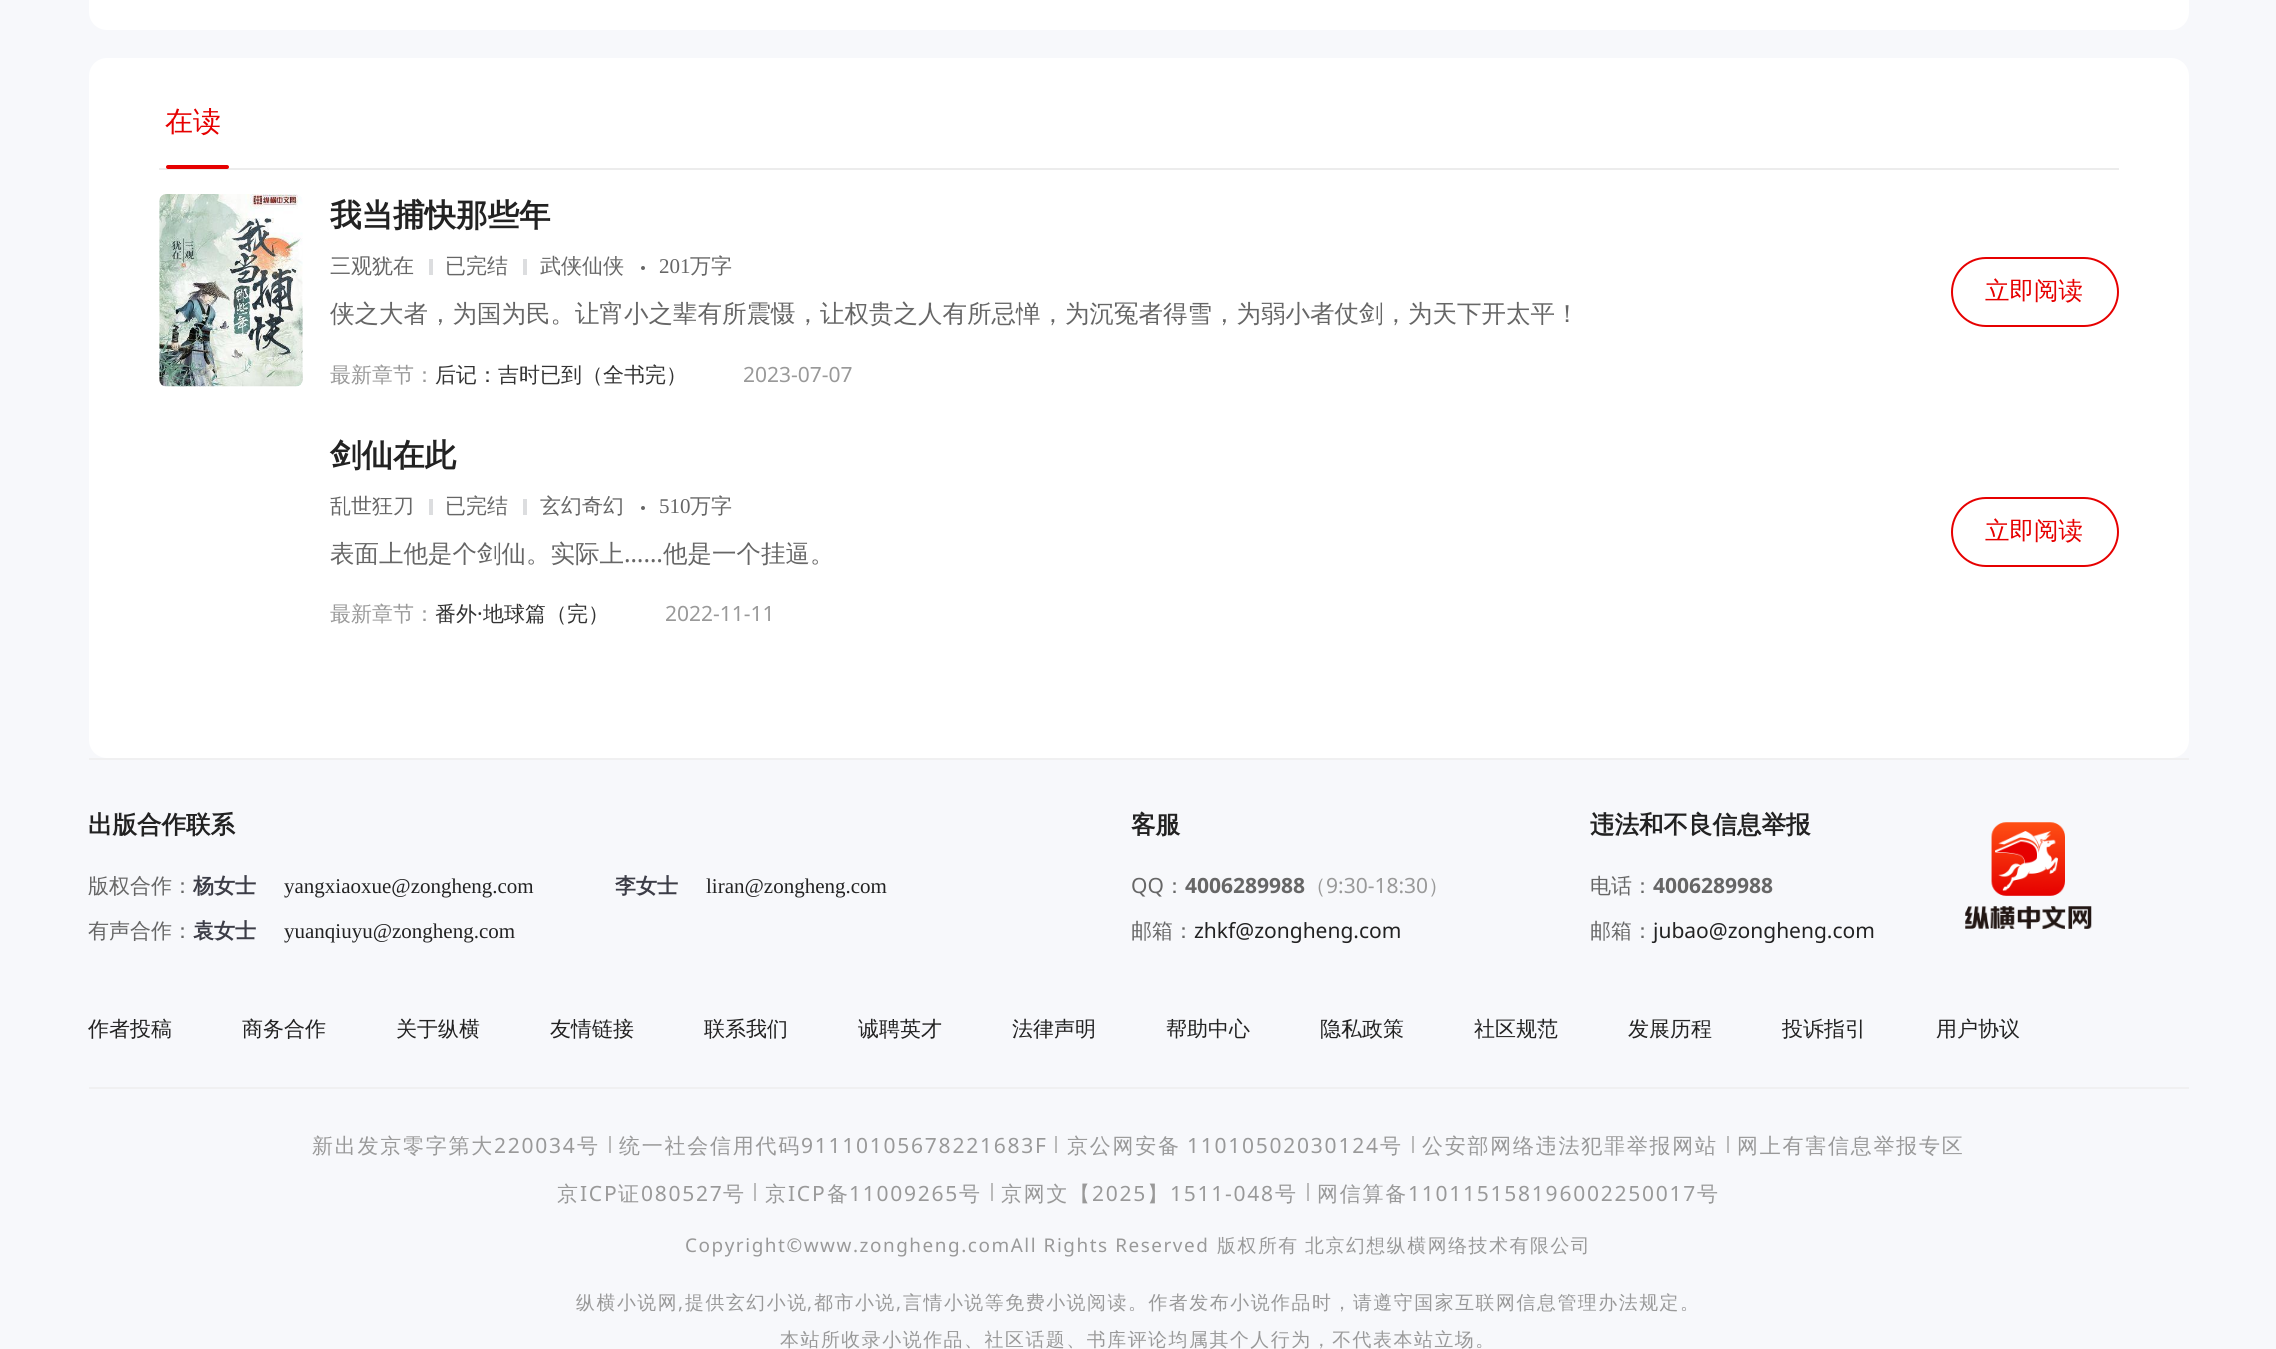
#include <cairo.h>
#include <math.h>
#include <stddef.h>

static cairo_t *ctx;

static void use_color(int r, int g, int b) {
    cairo_set_source_rgb(ctx, r / 255.0, g / 255.0, b / 255.0);
}

static void spaced_text(double x, double y, const char *s, double letter, double word) {
    cairo_move_to(ctx, x, y);
    while (*s) {
        char ch[5] = {0};
        int n = 0;
        do ch[n++] = *s++; while ((*s & 0xC0) == 0x80);
        cairo_show_text(ctx, ch);
        cairo_rel_move_to(ctx, letter + word * (*ch == ' '), 0);
    }
}

static void round_rect(double x, double y, double w, double h, double r) {
    cairo_new_sub_path(ctx);
    cairo_arc(ctx, x + w - r, y + h - r, r, 0, M_PI / 2);
    cairo_arc(ctx, x + r, y + h - r, r, M_PI / 2, M_PI);
    cairo_arc(ctx, x + r, y + r, r, M_PI, 1.5 * M_PI);
    cairo_arc(ctx, x + w - r, y + r, r, 1.5 * M_PI, 2 * M_PI);
    cairo_close_path(ctx);
}

static void picture(const char *path, double x, double y, double w, double h) {
    cairo_surface_t *image = cairo_image_surface_create_from_png(path);
    cairo_save(ctx);
    cairo_set_source_surface(ctx, image, x, y);
    cairo_rectangle(ctx, x, y, w, h);
    cairo_fill(ctx);
    cairo_restore(ctx);
    cairo_surface_destroy(image);
}

int main(void) {
    cairo_surface_t *surface = cairo_image_surface_create(CAIRO_FORMAT_RGB24, 2276, 1349);
    ctx = cairo_create(surface);
    cairo_font_options_t *options = cairo_font_options_create();
    cairo_font_options_set_hint_metrics(options, CAIRO_HINT_METRICS_OFF);
    cairo_font_options_set_hint_style(options, CAIRO_HINT_STYLE_NONE);
    cairo_set_font_options(ctx, options);
    cairo_set_miter_limit(ctx, 4);
    use_color(247, 248, 251);
    cairo_paint(ctx);
    use_color(255, 255, 255);
    round_rect(89, -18, 2100, 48, 18);
    cairo_fill(ctx);
    round_rect(89, 58, 2100, 700, 18);
    cairo_fill(ctx);
    cairo_select_font_face(ctx, "WenQuanYi Zen Hei Medium", CAIRO_FONT_SLANT_NORMAL, CAIRO_FONT_WEIGHT_NORMAL);
    cairo_set_font_size(ctx, 28);
    use_color(230, 0, 0);
    cairo_move_to(ctx, 165, 131);
    cairo_show_text(ctx, "在读");
    use_color(236, 236, 236);
    cairo_rectangle(ctx, 159, 168, 1960, 2);
    cairo_fill(ctx);
    use_color(230, 0, 0);
    round_rect(166, 165, 63, 4, 2);
    cairo_fill(ctx);
    picture("img1.png", 159, 194, 144, 193);
    cairo_select_font_face(ctx, "WenQuanYi Zen Hei", CAIRO_FONT_SLANT_NORMAL, CAIRO_FONT_WEIGHT_BOLD);
    cairo_set_font_size(ctx, 31.5);
    use_color(34, 34, 34);
    cairo_move_to(ctx, 330, 226);
    cairo_show_text(ctx, "我当捕快那些年");
    cairo_select_font_face(ctx, "WenQuanYi Zen Hei Medium", CAIRO_FONT_SLANT_NORMAL, CAIRO_FONT_WEIGHT_NORMAL);
    cairo_set_font_size(ctx, 21);
    use_color(102, 102, 102);
    cairo_move_to(ctx, 330, 273);
    cairo_show_text(ctx, "三观犹在");
    use_color(220, 221, 223);
    cairo_rectangle(ctx, 429, 259, 4, 16);
    cairo_fill(ctx);
    use_color(102, 102, 102);
    cairo_move_to(ctx, 445, 273);
    cairo_show_text(ctx, "已完结");
    use_color(220, 221, 223);
    cairo_rectangle(ctx, 523, 259, 4, 16);
    cairo_fill(ctx);
    use_color(102, 102, 102);
    cairo_move_to(ctx, 540, 273);
    cairo_show_text(ctx, "武侠仙侠");
    cairo_new_path(ctx);
    cairo_arc(ctx, 643, 268, 2, 0, 2 * M_PI);
    cairo_fill(ctx);
    cairo_select_font_face(ctx, "Liberation Serif", CAIRO_FONT_SLANT_NORMAL, CAIRO_FONT_WEIGHT_NORMAL);
    cairo_move_to(ctx, 659, 273);
    cairo_show_text(ctx, "201");
    cairo_select_font_face(ctx, "WenQuanYi Zen Hei Medium", CAIRO_FONT_SLANT_NORMAL, CAIRO_FONT_WEIGHT_NORMAL);
    cairo_move_to(ctx, 690, 273);
    cairo_show_text(ctx, "万字");
    cairo_set_font_size(ctx, 24.5);
    cairo_move_to(ctx, 330, 322);
    cairo_show_text(ctx, "侠之大者，为国为民。让宵小之辈有所震慑，让权贵之人有所忌惮，为沉冤者得雪，为弱小者仗剑，为天下开太平！");
    cairo_set_font_size(ctx, 21);
    use_color(153, 153, 153);
    cairo_move_to(ctx, 330, 382);
    cairo_show_text(ctx, "最新章节：");
    use_color(51, 51, 51);
    cairo_move_to(ctx, 435, 382);
    cairo_show_text(ctx, "后记：吉时已到（全书完）");
    cairo_select_font_face(ctx, "Noto Sans", CAIRO_FONT_SLANT_NORMAL, CAIRO_FONT_WEIGHT_NORMAL);
    use_color(153, 153, 153);
    cairo_move_to(ctx, 743, 382);
    cairo_show_text(ctx, "2023-07-07");
    round_rect(1952, 258, 166, 68, 34);
    use_color(230, 0, 0);
    cairo_stroke(ctx);
    cairo_select_font_face(ctx, "WenQuanYi Zen Hei Medium", CAIRO_FONT_SLANT_NORMAL, CAIRO_FONT_WEIGHT_NORMAL);
    cairo_set_font_size(ctx, 24.5);
    cairo_move_to(ctx, 1985, 299);
    cairo_show_text(ctx, "立即阅读");
    cairo_select_font_face(ctx, "WenQuanYi Zen Hei", CAIRO_FONT_SLANT_NORMAL, CAIRO_FONT_WEIGHT_BOLD);
    cairo_set_font_size(ctx, 31.5);
    use_color(34, 34, 34);
    cairo_move_to(ctx, 330, 466);
    cairo_show_text(ctx, "剑仙在此");
    cairo_select_font_face(ctx, "WenQuanYi Zen Hei Medium", CAIRO_FONT_SLANT_NORMAL, CAIRO_FONT_WEIGHT_NORMAL);
    cairo_set_font_size(ctx, 21);
    use_color(102, 102, 102);
    cairo_move_to(ctx, 330, 513);
    cairo_show_text(ctx, "乱世狂刀");
    use_color(220, 221, 223);
    cairo_rectangle(ctx, 429, 499, 4, 16);
    cairo_fill(ctx);
    use_color(102, 102, 102);
    cairo_move_to(ctx, 445, 513);
    cairo_show_text(ctx, "已完结");
    use_color(220, 221, 223);
    cairo_rectangle(ctx, 523, 499, 4, 16);
    cairo_fill(ctx);
    use_color(102, 102, 102);
    cairo_move_to(ctx, 540, 513);
    cairo_show_text(ctx, "玄幻奇幻");
    cairo_new_path(ctx);
    cairo_arc(ctx, 643, 508, 2, 0, 2 * M_PI);
    cairo_fill(ctx);
    cairo_select_font_face(ctx, "Liberation Serif", CAIRO_FONT_SLANT_NORMAL, CAIRO_FONT_WEIGHT_NORMAL);
    cairo_move_to(ctx, 659, 513);
    cairo_show_text(ctx, "510");
    cairo_select_font_face(ctx, "WenQuanYi Zen Hei Medium", CAIRO_FONT_SLANT_NORMAL, CAIRO_FONT_WEIGHT_NORMAL);
    cairo_move_to(ctx, 690, 513);
    cairo_show_text(ctx, "万字");
    cairo_set_font_size(ctx, 24.5);
    cairo_move_to(ctx, 330, 562);
    cairo_show_text(ctx, "表面上他是个剑仙。实际上");
    cairo_select_font_face(ctx, "Noto Sans", CAIRO_FONT_SLANT_NORMAL, CAIRO_FONT_WEIGHT_NORMAL);
    cairo_move_to(ctx, 624, 562);
    cairo_show_text(ctx, "……");
    cairo_select_font_face(ctx, "WenQuanYi Zen Hei Medium", CAIRO_FONT_SLANT_NORMAL, CAIRO_FONT_WEIGHT_NORMAL);
    cairo_move_to(ctx, 663, 562);
    cairo_show_text(ctx, "他是一个挂逼。");
    cairo_set_font_size(ctx, 21);
    use_color(153, 153, 153);
    cairo_move_to(ctx, 330, 621);
    cairo_show_text(ctx, "最新章节：");
    use_color(51, 51, 51);
    cairo_move_to(ctx, 435, 621);
    cairo_show_text(ctx, "番外");
    cairo_select_font_face(ctx, "Noto Sans", CAIRO_FONT_SLANT_NORMAL, CAIRO_FONT_WEIGHT_NORMAL);
    cairo_move_to(ctx, 477, 621);
    cairo_show_text(ctx, "·");
    cairo_select_font_face(ctx, "WenQuanYi Zen Hei Medium", CAIRO_FONT_SLANT_NORMAL, CAIRO_FONT_WEIGHT_NORMAL);
    cairo_move_to(ctx, 483, 621);
    cairo_show_text(ctx, "地球篇（完）");
    cairo_select_font_face(ctx, "Noto Sans", CAIRO_FONT_SLANT_NORMAL, CAIRO_FONT_WEIGHT_NORMAL);
    use_color(153, 153, 153);
    cairo_move_to(ctx, 665, 621);
    cairo_show_text(ctx, "2022-11-11");
    round_rect(1952, 498, 166, 68, 34);
    use_color(230, 0, 0);
    cairo_stroke(ctx);
    cairo_select_font_face(ctx, "WenQuanYi Zen Hei Medium", CAIRO_FONT_SLANT_NORMAL, CAIRO_FONT_WEIGHT_NORMAL);
    cairo_set_font_size(ctx, 24.5);
    cairo_move_to(ctx, 1985, 539);
    cairo_show_text(ctx, "立即阅读");
    use_color(240, 240, 241);
    cairo_rectangle(ctx, 89, 758, 2100, 2);
    cairo_fill(ctx);
    cairo_rectangle(ctx, 89, 1087, 2100, 2);
    cairo_fill(ctx);
    cairo_select_font_face(ctx, "WenQuanYi Zen Hei", CAIRO_FONT_SLANT_NORMAL, CAIRO_FONT_WEIGHT_BOLD);
    use_color(34, 34, 34);
    cairo_move_to(ctx, 88, 833);
    cairo_show_text(ctx, "出版合作联系");
    cairo_select_font_face(ctx, "WenQuanYi Zen Hei Medium", CAIRO_FONT_SLANT_NORMAL, CAIRO_FONT_WEIGHT_NORMAL);
    cairo_set_font_size(ctx, 21);
    use_color(102, 102, 102);
    cairo_move_to(ctx, 88, 893);
    cairo_show_text(ctx, "版权合作：");
    cairo_select_font_face(ctx, "WenQuanYi Zen Hei", CAIRO_FONT_SLANT_NORMAL, CAIRO_FONT_WEIGHT_BOLD);
    use_color(60, 61, 71);
    cairo_move_to(ctx, 193, 893);
    cairo_show_text(ctx, "杨女士");
    cairo_select_font_face(ctx, "Liberation Serif", CAIRO_FONT_SLANT_NORMAL, CAIRO_FONT_WEIGHT_NORMAL);
    use_color(34, 34, 34);
    cairo_move_to(ctx, 284, 893);
    cairo_show_text(ctx, "yangxiaoxue@zongheng.com");
    cairo_select_font_face(ctx, "WenQuanYi Zen Hei", CAIRO_FONT_SLANT_NORMAL, CAIRO_FONT_WEIGHT_BOLD);
    use_color(60, 61, 71);
    cairo_move_to(ctx, 615, 893);
    cairo_show_text(ctx, "李女士");
    cairo_select_font_face(ctx, "Liberation Serif", CAIRO_FONT_SLANT_NORMAL, CAIRO_FONT_WEIGHT_NORMAL);
    use_color(34, 34, 34);
    cairo_move_to(ctx, 706, 893);
    cairo_show_text(ctx, "liran@zongheng.com");
    cairo_select_font_face(ctx, "WenQuanYi Zen Hei Medium", CAIRO_FONT_SLANT_NORMAL, CAIRO_FONT_WEIGHT_NORMAL);
    use_color(102, 102, 102);
    cairo_move_to(ctx, 88, 938);
    cairo_show_text(ctx, "有声合作：");
    cairo_select_font_face(ctx, "WenQuanYi Zen Hei", CAIRO_FONT_SLANT_NORMAL, CAIRO_FONT_WEIGHT_BOLD);
    use_color(60, 61, 71);
    cairo_move_to(ctx, 193, 938);
    cairo_show_text(ctx, "袁女士");
    cairo_select_font_face(ctx, "Liberation Serif", CAIRO_FONT_SLANT_NORMAL, CAIRO_FONT_WEIGHT_NORMAL);
    use_color(34, 34, 34);
    cairo_move_to(ctx, 284, 938);
    cairo_show_text(ctx, "yuanqiuyu@zongheng.com");
    cairo_select_font_face(ctx, "WenQuanYi Zen Hei", CAIRO_FONT_SLANT_NORMAL, CAIRO_FONT_WEIGHT_BOLD);
    cairo_set_font_size(ctx, 24.5);
    cairo_move_to(ctx, 1131, 833);
    cairo_show_text(ctx, "客服");
    cairo_select_font_face(ctx, "Noto Sans", CAIRO_FONT_SLANT_NORMAL, CAIRO_FONT_WEIGHT_NORMAL);
    cairo_set_font_size(ctx, 21);
    use_color(102, 102, 102);
    cairo_move_to(ctx, 1131, 893);
    cairo_show_text(ctx, "QQ");
    cairo_select_font_face(ctx, "WenQuanYi Zen Hei Medium", CAIRO_FONT_SLANT_NORMAL, CAIRO_FONT_WEIGHT_NORMAL);
    cairo_move_to(ctx, 1164, 893);
    cairo_show_text(ctx, "：");
    cairo_select_font_face(ctx, "Noto Sans", CAIRO_FONT_SLANT_NORMAL, CAIRO_FONT_WEIGHT_BOLD);
    cairo_move_to(ctx, 1185, 893);
    cairo_show_text(ctx, "4006289988");
    cairo_select_font_face(ctx, "WenQuanYi Zen Hei Medium", CAIRO_FONT_SLANT_NORMAL, CAIRO_FONT_WEIGHT_NORMAL);
    use_color(153, 153, 153);
    cairo_move_to(ctx, 1305, 893);
    cairo_show_text(ctx, "（");
    cairo_select_font_face(ctx, "Noto Sans", CAIRO_FONT_SLANT_NORMAL, CAIRO_FONT_WEIGHT_NORMAL);
    cairo_move_to(ctx, 1326, 893);
    cairo_show_text(ctx, "9:30-18:30");
    cairo_select_font_face(ctx, "WenQuanYi Zen Hei Medium", CAIRO_FONT_SLANT_NORMAL, CAIRO_FONT_WEIGHT_NORMAL);
    cairo_move_to(ctx, 1428, 893);
    cairo_show_text(ctx, "）");
    use_color(102, 102, 102);
    cairo_move_to(ctx, 1131, 938);
    cairo_show_text(ctx, "邮箱：");
    cairo_select_font_face(ctx, "Noto Sans", CAIRO_FONT_SLANT_NORMAL, CAIRO_FONT_WEIGHT_NORMAL);
    use_color(34, 34, 34);
    cairo_move_to(ctx, 1194, 938);
    cairo_show_text(ctx, "zhkf@zongheng.com");
    cairo_select_font_face(ctx, "WenQuanYi Zen Hei", CAIRO_FONT_SLANT_NORMAL, CAIRO_FONT_WEIGHT_BOLD);
    cairo_set_font_size(ctx, 24.5);
    cairo_move_to(ctx, 1590, 833);
    cairo_show_text(ctx, "违法和不良信息举报");
    cairo_select_font_face(ctx, "WenQuanYi Zen Hei Medium", CAIRO_FONT_SLANT_NORMAL, CAIRO_FONT_WEIGHT_NORMAL);
    cairo_set_font_size(ctx, 21);
    use_color(102, 102, 102);
    cairo_move_to(ctx, 1590, 893);
    cairo_show_text(ctx, "电话：");
    cairo_select_font_face(ctx, "Noto Sans", CAIRO_FONT_SLANT_NORMAL, CAIRO_FONT_WEIGHT_BOLD);
    cairo_move_to(ctx, 1653, 893);
    cairo_show_text(ctx, "4006289988");
    cairo_select_font_face(ctx, "WenQuanYi Zen Hei Medium", CAIRO_FONT_SLANT_NORMAL, CAIRO_FONT_WEIGHT_NORMAL);
    cairo_move_to(ctx, 1590, 938);
    cairo_show_text(ctx, "邮箱：");
    cairo_select_font_face(ctx, "Noto Sans", CAIRO_FONT_SLANT_NORMAL, CAIRO_FONT_WEIGHT_NORMAL);
    use_color(34, 34, 34);
    cairo_move_to(ctx, 1653, 938);
    cairo_show_text(ctx, "jubao@zongheng.com");
    picture("img2.png", 1965, 822, 127, 107);
    cairo_select_font_face(ctx, "WenQuanYi Zen Hei Medium", CAIRO_FONT_SLANT_NORMAL, CAIRO_FONT_WEIGHT_NORMAL);
    cairo_move_to(ctx, 88, 1036);
    cairo_show_text(ctx, "作者投稿");
    cairo_move_to(ctx, 242, 1036);
    cairo_show_text(ctx, "商务合作");
    cairo_move_to(ctx, 396, 1036);
    cairo_show_text(ctx, "关于纵横");
    cairo_move_to(ctx, 550, 1036);
    cairo_show_text(ctx, "友情链接");
    cairo_move_to(ctx, 704, 1036);
    cairo_show_text(ctx, "联系我们");
    cairo_move_to(ctx, 858, 1036);
    cairo_show_text(ctx, "诚聘英才");
    cairo_move_to(ctx, 1012, 1036);
    cairo_show_text(ctx, "法律声明");
    cairo_move_to(ctx, 1166, 1036);
    cairo_show_text(ctx, "帮助中心");
    cairo_move_to(ctx, 1320, 1036);
    cairo_show_text(ctx, "隐私政策");
    cairo_move_to(ctx, 1474, 1036);
    cairo_show_text(ctx, "社区规范");
    cairo_move_to(ctx, 1628, 1036);
    cairo_show_text(ctx, "发展历程");
    cairo_move_to(ctx, 1782, 1036);
    cairo_show_text(ctx, "投诉指引");
    cairo_move_to(ctx, 1936, 1036);
    cairo_show_text(ctx, "用户协议");
    use_color(153, 153, 153);
    spaced_text(312, 1153, "新出发京零字第大", 1.75, 0);
    cairo_select_font_face(ctx, "Noto Sans", CAIRO_FONT_SLANT_NORMAL, CAIRO_FONT_WEIGHT_NORMAL);
    spaced_text(494, 1153, "220034", 1.75, 0);
    cairo_select_font_face(ctx, "WenQuanYi Zen Hei Medium", CAIRO_FONT_SLANT_NORMAL, CAIRO_FONT_WEIGHT_NORMAL);
    spaced_text(577, 1153, "号", 1.75, 0);
    use_color(187, 187, 187);
    cairo_rectangle(ctx, 609, 1136, 2, 17);
    cairo_fill(ctx);
    use_color(153, 153, 153);
    spaced_text(619, 1153, "统一社会信用代码", 1.75, 0);
    cairo_select_font_face(ctx, "Noto Sans", CAIRO_FONT_SLANT_NORMAL, CAIRO_FONT_WEIGHT_NORMAL);
    spaced_text(801, 1153, "91110105678221683F", 1.75, 0);
    use_color(187, 187, 187);
    cairo_rectangle(ctx, 1055, 1136, 2, 17);
    cairo_fill(ctx);
    cairo_select_font_face(ctx, "WenQuanYi Zen Hei Medium", CAIRO_FONT_SLANT_NORMAL, CAIRO_FONT_WEIGHT_NORMAL);
    use_color(153, 153, 153);
    spaced_text(1067, 1153, "京公网安备", 1.75, 0);
    cairo_select_font_face(ctx, "Noto Sans", CAIRO_FONT_SLANT_NORMAL, CAIRO_FONT_WEIGHT_NORMAL);
    spaced_text(1187, 1153, "11010502030124", 1.75, 0);
    cairo_select_font_face(ctx, "WenQuanYi Zen Hei Medium", CAIRO_FONT_SLANT_NORMAL, CAIRO_FONT_WEIGHT_NORMAL);
    spaced_text(1380, 1153, "号", 1.75, 0);
    use_color(187, 187, 187);
    cairo_rectangle(ctx, 1412, 1136, 2, 17);
    cairo_fill(ctx);
    use_color(153, 153, 153);
    spaced_text(1422, 1153, "公安部网络违法犯罪举报网站", 1.75, 0);
    use_color(187, 187, 187);
    cairo_rectangle(ctx, 1727, 1136, 2, 17);
    cairo_fill(ctx);
    use_color(153, 153, 153);
    spaced_text(1737, 1153, "网上有害信息举报专区", 1.75, 0);
    spaced_text(557, 1201, "京", 1.75, 0);
    cairo_select_font_face(ctx, "Noto Sans", CAIRO_FONT_SLANT_NORMAL, CAIRO_FONT_WEIGHT_NORMAL);
    spaced_text(580, 1201, "ICP", 1.75, 0);
    cairo_select_font_face(ctx, "WenQuanYi Zen Hei Medium", CAIRO_FONT_SLANT_NORMAL, CAIRO_FONT_WEIGHT_NORMAL);
    spaced_text(618, 1201, "证", 1.75, 0);
    cairo_select_font_face(ctx, "Noto Sans", CAIRO_FONT_SLANT_NORMAL, CAIRO_FONT_WEIGHT_NORMAL);
    spaced_text(641, 1201, "080527", 1.75, 0);
    cairo_select_font_face(ctx, "WenQuanYi Zen Hei Medium", CAIRO_FONT_SLANT_NORMAL, CAIRO_FONT_WEIGHT_NORMAL);
    spaced_text(723, 1201, "号", 1.75, 0);
    use_color(187, 187, 187);
    cairo_rectangle(ctx, 754, 1183, 2, 18);
    cairo_fill(ctx);
    use_color(153, 153, 153);
    spaced_text(765, 1201, "京", 1.75, 0);
    cairo_select_font_face(ctx, "Noto Sans", CAIRO_FONT_SLANT_NORMAL, CAIRO_FONT_WEIGHT_NORMAL);
    spaced_text(788, 1201, "ICP", 1.75, 0);
    cairo_select_font_face(ctx, "WenQuanYi Zen Hei Medium", CAIRO_FONT_SLANT_NORMAL, CAIRO_FONT_WEIGHT_NORMAL);
    spaced_text(827, 1201, "备", 1.75, 0);
    cairo_select_font_face(ctx, "Noto Sans", CAIRO_FONT_SLANT_NORMAL, CAIRO_FONT_WEIGHT_NORMAL);
    spaced_text(849, 1201, "11009265", 1.75, 0);
    cairo_select_font_face(ctx, "WenQuanYi Zen Hei Medium", CAIRO_FONT_SLANT_NORMAL, CAIRO_FONT_WEIGHT_NORMAL);
    spaced_text(959, 1201, "号", 1.75, 0);
    use_color(187, 187, 187);
    cairo_rectangle(ctx, 991, 1183, 2, 18);
    cairo_fill(ctx);
    use_color(153, 153, 153);
    spaced_text(1001, 1201, "京网文【", 1.75, 0);
    cairo_select_font_face(ctx, "Noto Sans", CAIRO_FONT_SLANT_NORMAL, CAIRO_FONT_WEIGHT_NORMAL);
    spaced_text(1092, 1201, "2025", 1.75, 0);
    cairo_select_font_face(ctx, "WenQuanYi Zen Hei Medium", CAIRO_FONT_SLANT_NORMAL, CAIRO_FONT_WEIGHT_NORMAL);
    spaced_text(1147, 1201, "】", 1.75, 0);
    cairo_select_font_face(ctx, "Noto Sans", CAIRO_FONT_SLANT_NORMAL, CAIRO_FONT_WEIGHT_NORMAL);
    spaced_text(1170, 1201, "1511-048", 1.75, 0);
    cairo_select_font_face(ctx, "WenQuanYi Zen Hei Medium", CAIRO_FONT_SLANT_NORMAL, CAIRO_FONT_WEIGHT_NORMAL);
    spaced_text(1275, 1201, "号", 1.75, 0);
    use_color(187, 187, 187);
    cairo_rectangle(ctx, 1307, 1183, 2, 18);
    cairo_fill(ctx);
    use_color(153, 153, 153);
    spaced_text(1317, 1201, "网信算备", 1.75, 0);
    cairo_select_font_face(ctx, "Noto Sans", CAIRO_FONT_SLANT_NORMAL, CAIRO_FONT_WEIGHT_NORMAL);
    spaced_text(1408, 1201, "110115158196002250017", 1.75, 0);
    cairo_select_font_face(ctx, "WenQuanYi Zen Hei Medium", CAIRO_FONT_SLANT_NORMAL, CAIRO_FONT_WEIGHT_NORMAL);
    spaced_text(1697, 1201, "号", 1.75, 0);
    cairo_select_font_face(ctx, "Noto Sans", CAIRO_FONT_SLANT_NORMAL, CAIRO_FONT_WEIGHT_NORMAL);
    cairo_set_font_size(ctx, 18.9);
    spaced_text(685, 1252, "Copyright©www.zongheng.comAll Rights Reserved", 1.55, 0);
    cairo_select_font_face(ctx, "WenQuanYi Zen Hei Medium", CAIRO_FONT_SLANT_NORMAL, CAIRO_FONT_WEIGHT_NORMAL);
    spaced_text(1217, 1252, "版权所有", 1.55, 0);
    spaced_text(1305, 1252, "北京幻想纵横网络技术有限公司", 1.55, 0);
    spaced_text(576, 1309, "纵横小说网", 1.55, 0);
    cairo_select_font_face(ctx, "Noto Sans", CAIRO_FONT_SLANT_NORMAL, CAIRO_FONT_WEIGHT_NORMAL);
    spaced_text(678, 1309, ",", 1.55, 0);
    cairo_select_font_face(ctx, "WenQuanYi Zen Hei Medium", CAIRO_FONT_SLANT_NORMAL, CAIRO_FONT_WEIGHT_NORMAL);
    spaced_text(685, 1309, "提供玄幻小说", 1.55, 0);
    cairo_select_font_face(ctx, "Noto Sans", CAIRO_FONT_SLANT_NORMAL, CAIRO_FONT_WEIGHT_NORMAL);
    spaced_text(807, 1309, ",", 1.55, 0);
    cairo_select_font_face(ctx, "WenQuanYi Zen Hei Medium", CAIRO_FONT_SLANT_NORMAL, CAIRO_FONT_WEIGHT_NORMAL);
    spaced_text(814, 1309, "都市小说", 1.55, 0);
    cairo_select_font_face(ctx, "Noto Sans", CAIRO_FONT_SLANT_NORMAL, CAIRO_FONT_WEIGHT_NORMAL);
    spaced_text(896, 1309, ",", 1.55, 0);
    cairo_select_font_face(ctx, "WenQuanYi Zen Hei Medium", CAIRO_FONT_SLANT_NORMAL, CAIRO_FONT_WEIGHT_NORMAL);
    spaced_text(903, 1309, "言情小说等免费小说阅读。作者发布小说作品时，请遵守国家互联网信息管理办法规定。", 1.55, 0);
    spaced_text(780, 1346, "本站所收录小说作品、社区话题、书库评论均属其个人行为，不代表本站立场。", 1.55, 0);
    cairo_surface_write_to_png(surface, "result.png");
    cairo_font_options_destroy(options);
    cairo_destroy(ctx);
    cairo_surface_destroy(surface);
    return 0;
}
